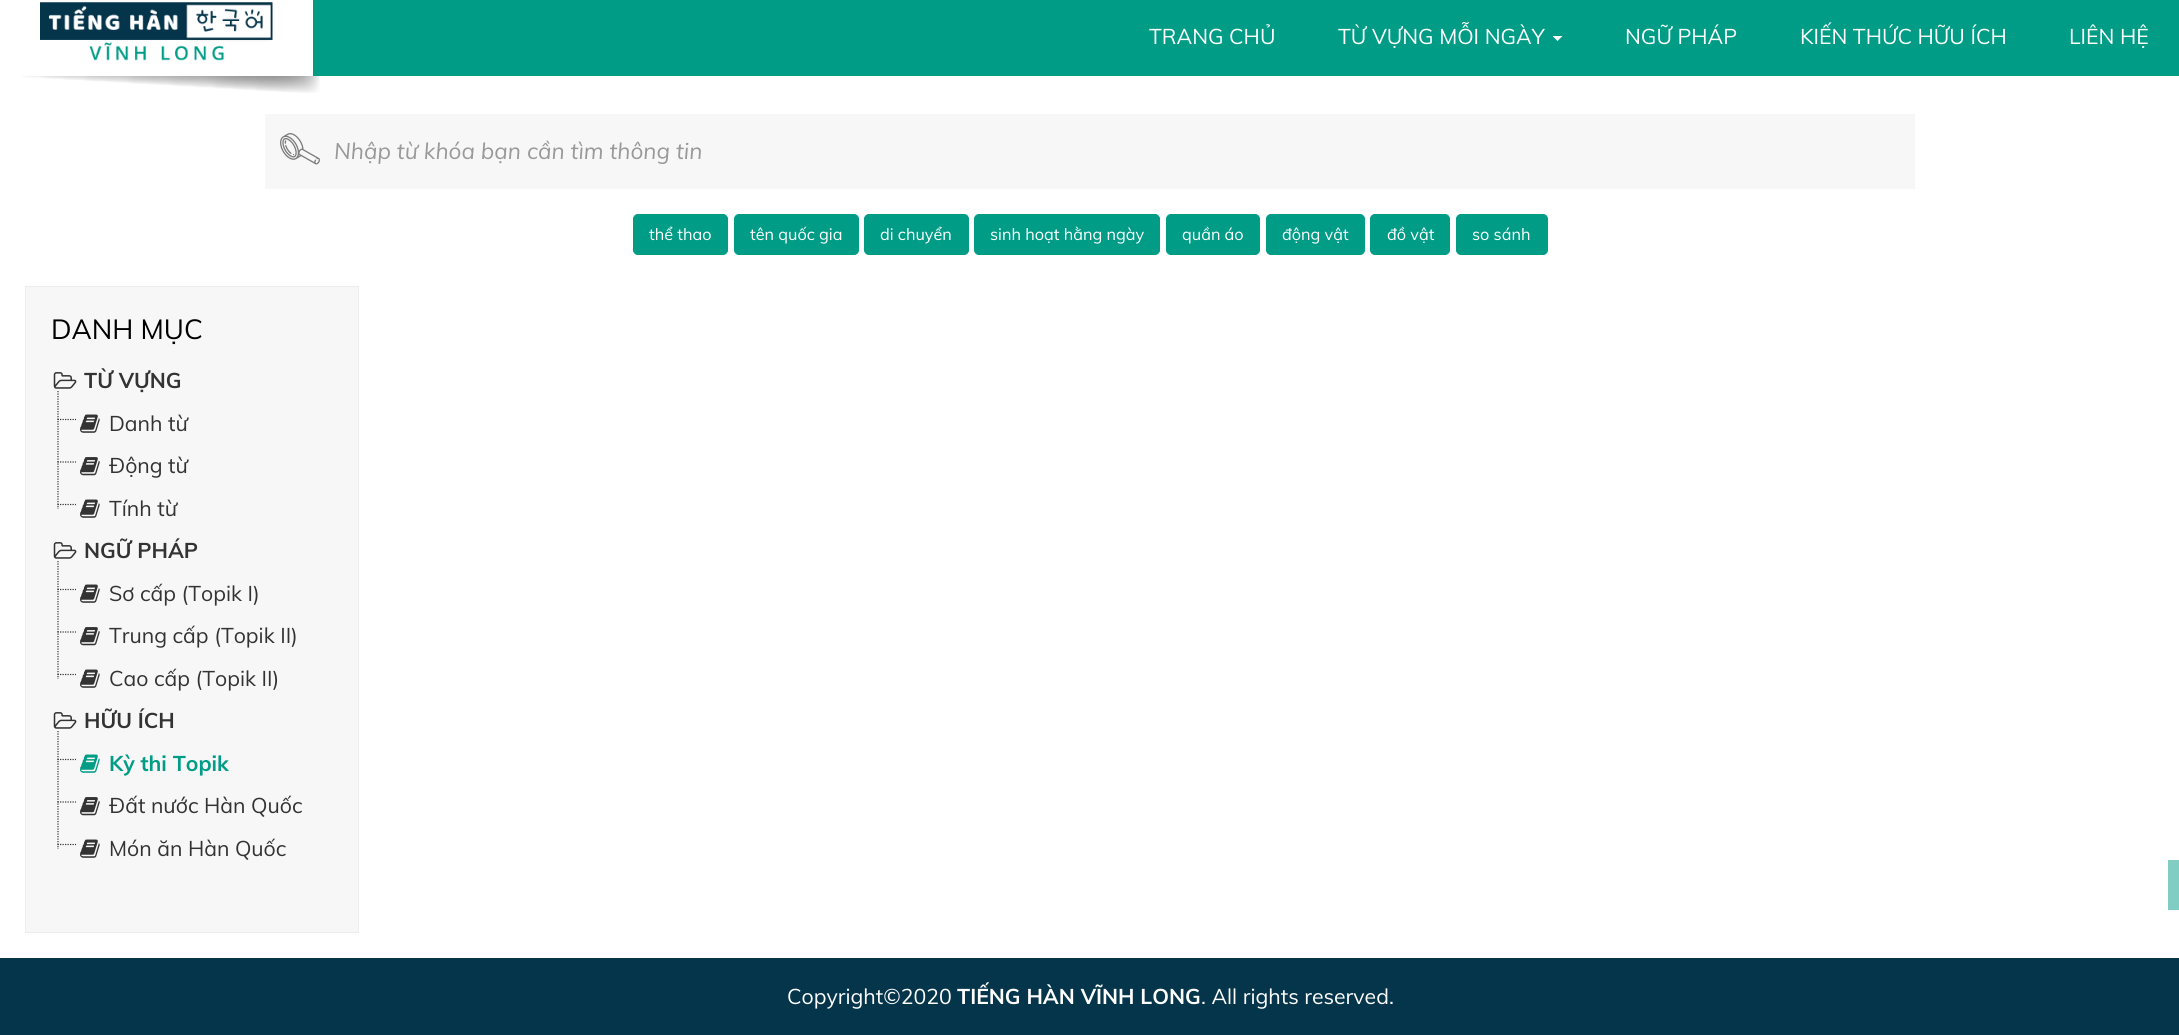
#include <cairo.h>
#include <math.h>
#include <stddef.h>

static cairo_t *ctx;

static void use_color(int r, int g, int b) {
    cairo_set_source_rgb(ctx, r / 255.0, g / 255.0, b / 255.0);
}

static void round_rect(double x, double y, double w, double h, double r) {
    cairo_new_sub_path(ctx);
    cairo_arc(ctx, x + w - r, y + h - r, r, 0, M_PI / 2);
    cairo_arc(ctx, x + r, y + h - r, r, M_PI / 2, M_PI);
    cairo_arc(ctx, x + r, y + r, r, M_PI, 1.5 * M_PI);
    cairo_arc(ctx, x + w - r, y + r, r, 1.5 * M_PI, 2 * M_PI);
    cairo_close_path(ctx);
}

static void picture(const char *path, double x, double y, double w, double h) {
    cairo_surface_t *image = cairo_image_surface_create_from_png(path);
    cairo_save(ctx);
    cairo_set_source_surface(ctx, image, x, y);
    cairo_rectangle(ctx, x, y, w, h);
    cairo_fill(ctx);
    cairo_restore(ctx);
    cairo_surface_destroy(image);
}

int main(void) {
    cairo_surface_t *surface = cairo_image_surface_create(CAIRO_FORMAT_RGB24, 2179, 1035);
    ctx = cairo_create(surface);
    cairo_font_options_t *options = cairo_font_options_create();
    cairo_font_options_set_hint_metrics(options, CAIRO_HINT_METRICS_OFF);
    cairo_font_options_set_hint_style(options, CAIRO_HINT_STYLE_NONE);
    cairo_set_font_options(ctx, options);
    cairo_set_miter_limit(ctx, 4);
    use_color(255, 255, 255);
    cairo_paint(ctx);
    picture("img1.png", 40, 2, 233, 59);
    picture("img2.png", 22, 76, 298, 17);
    use_color(0, 156, 134);
    cairo_rectangle(ctx, 313, 0, 1866, 76);
    cairo_fill(ctx);
    cairo_select_font_face(ctx, "Muli", CAIRO_FONT_SLANT_NORMAL, CAIRO_FONT_WEIGHT_NORMAL);
    cairo_set_font_size(ctx, 21.25);
    use_color(255, 255, 255);
    cairo_move_to(ctx, 1149, 44);
    cairo_show_text(ctx, "TRANG CHỦ");
    cairo_move_to(ctx, 1338, 44);
    cairo_show_text(ctx, "TỪ VỰNG MỖI NGÀY");
    cairo_new_path(ctx);
    cairo_move_to(ctx, 1552.5, 36);
    cairo_line_to(ctx, 1562.5, 36);
    cairo_line_to(ctx, 1557.5, 41);
    cairo_close_path(ctx);
    cairo_fill(ctx);
    cairo_move_to(ctx, 1625, 44);
    cairo_show_text(ctx, "NGỮ PHÁP");
    cairo_move_to(ctx, 1800, 44);
    cairo_show_text(ctx, "KIẾN THỨC HỮU ÍCH");
    cairo_move_to(ctx, 2069, 44);
    cairo_show_text(ctx, "LIÊN HỆ");
    use_color(247, 247, 247);
    cairo_rectangle(ctx, 265, 114, 1650, 75);
    cairo_fill(ctx);
    picture("img3.png", 280, 133, 40, 32);
    cairo_select_font_face(ctx, "Muli", CAIRO_FONT_SLANT_ITALIC, CAIRO_FONT_WEIGHT_NORMAL);
    cairo_set_font_size(ctx, 22.5);
    use_color(153, 153, 153);
    cairo_move_to(ctx, 334, 159);
    cairo_show_text(ctx, "Nhập từ khóa bạn cần tìm thông tin");
    use_color(0, 156, 134);
    round_rect(633.5, 214.5, 94, 40, 4.5);
    cairo_fill_preserve(ctx);
    cairo_set_line_width(ctx, 1);
    cairo_stroke(ctx);
    cairo_select_font_face(ctx, "Muli", CAIRO_FONT_SLANT_NORMAL, CAIRO_FONT_WEIGHT_NORMAL);
    cairo_set_font_size(ctx, 16.25);
    use_color(255, 255, 255);
    cairo_move_to(ctx, 649, 240);
    cairo_show_text(ctx, "thể thao");
    use_color(0, 156, 134);
    round_rect(734.5, 214.5, 124, 40, 4.5);
    cairo_fill_preserve(ctx);
    cairo_stroke(ctx);
    use_color(255, 255, 255);
    cairo_move_to(ctx, 750, 240);
    cairo_show_text(ctx, "tên quốc gia");
    use_color(0, 156, 134);
    round_rect(864.5, 214.5, 104, 40, 4.5);
    cairo_fill_preserve(ctx);
    cairo_stroke(ctx);
    use_color(255, 255, 255);
    cairo_move_to(ctx, 880, 240);
    cairo_show_text(ctx, "di chuyển");
    use_color(0, 156, 134);
    round_rect(974.5, 214.5, 185, 40, 4.5);
    cairo_fill_preserve(ctx);
    cairo_stroke(ctx);
    use_color(255, 255, 255);
    cairo_move_to(ctx, 990, 240);
    cairo_show_text(ctx, "sinh hoạt hằng ngày");
    use_color(0, 156, 134);
    round_rect(1166.5, 214.5, 93, 40, 4.5);
    cairo_fill_preserve(ctx);
    cairo_stroke(ctx);
    use_color(255, 255, 255);
    cairo_move_to(ctx, 1182, 240);
    cairo_show_text(ctx, "quần áo");
    use_color(0, 156, 134);
    round_rect(1266.5, 214.5, 98, 40, 4.5);
    cairo_fill_preserve(ctx);
    cairo_stroke(ctx);
    use_color(255, 255, 255);
    cairo_move_to(ctx, 1282, 240);
    cairo_show_text(ctx, "động vật");
    use_color(0, 156, 134);
    round_rect(1370.5, 214.5, 79, 40, 4.5);
    cairo_fill_preserve(ctx);
    cairo_stroke(ctx);
    use_color(255, 255, 255);
    cairo_move_to(ctx, 1387, 240);
    cairo_show_text(ctx, "đồ vật");
    use_color(0, 156, 134);
    round_rect(1456.5, 214.5, 91, 40, 4.5);
    cairo_fill_preserve(ctx);
    cairo_stroke(ctx);
    use_color(255, 255, 255);
    cairo_move_to(ctx, 1472, 240);
    cairo_show_text(ctx, "so sánh");
    use_color(247, 247, 247);
    cairo_rectangle(ctx, 25.5, 286.5, 333, 646);
    cairo_fill_preserve(ctx);
    use_color(237, 237, 237);
    cairo_stroke(ctx);
    cairo_set_font_size(ctx, 27.5);
    use_color(0, 0, 0);
    cairo_move_to(ctx, 51, 339);
    cairo_show_text(ctx, "DANH MỤC");
    picture("img4.png", 53, 372, 24, 17);
    cairo_select_font_face(ctx, "Muli", CAIRO_FONT_SLANT_NORMAL, CAIRO_FONT_WEIGHT_BOLD);
    cairo_set_font_size(ctx, 21.25);
    use_color(51, 51, 51);
    cairo_move_to(ctx, 84, 388);
    cairo_show_text(ctx, "TỪ VỰNG");
    cairo_new_path(ctx);
    cairo_move_to(ctx, 58, 391);
    cairo_line_to(ctx, 58, 509);
    cairo_set_line_width(ctx, 1.2);
    cairo_set_dash(ctx, (double[]){1.25, 1.25}, 2, 0);
    cairo_stroke(ctx);
    cairo_new_path(ctx);
    cairo_move_to(ctx, 57.5, 419.5);
    cairo_line_to(ctx, 76, 419.5);
    cairo_stroke(ctx);
    picture("img5.png", 80, 414, 20, 19);
    cairo_select_font_face(ctx, "Muli", CAIRO_FONT_SLANT_NORMAL, CAIRO_FONT_WEIGHT_NORMAL);
    cairo_move_to(ctx, 109, 431);
    cairo_show_text(ctx, "Danh từ");
    cairo_new_path(ctx);
    cairo_move_to(ctx, 57.5, 462);
    cairo_line_to(ctx, 76, 462);
    cairo_stroke(ctx);
    picture("img6.png", 80, 457, 20, 19);
    cairo_move_to(ctx, 109, 473);
    cairo_show_text(ctx, "Động từ");
    cairo_new_path(ctx);
    cairo_move_to(ctx, 57.5, 504.5);
    cairo_line_to(ctx, 76, 504.5);
    cairo_stroke(ctx);
    picture("img5.png", 80, 499, 20, 19);
    cairo_move_to(ctx, 109, 516);
    cairo_show_text(ctx, "Tính từ");
    picture("img4.png", 53, 542, 24, 17);
    cairo_select_font_face(ctx, "Muli", CAIRO_FONT_SLANT_NORMAL, CAIRO_FONT_WEIGHT_BOLD);
    cairo_move_to(ctx, 84, 558);
    cairo_show_text(ctx, "NGỮ PHÁP");
    cairo_new_path(ctx);
    cairo_move_to(ctx, 58, 561);
    cairo_line_to(ctx, 58, 679);
    cairo_stroke(ctx);
    cairo_new_path(ctx);
    cairo_move_to(ctx, 57.5, 589.5);
    cairo_line_to(ctx, 76, 589.5);
    cairo_stroke(ctx);
    picture("img5.png", 80, 584, 20, 19);
    cairo_select_font_face(ctx, "Muli", CAIRO_FONT_SLANT_NORMAL, CAIRO_FONT_WEIGHT_NORMAL);
    cairo_move_to(ctx, 109, 601);
    cairo_show_text(ctx, "Sơ cấp (Topik I)");
    cairo_new_path(ctx);
    cairo_move_to(ctx, 57.5, 632);
    cairo_line_to(ctx, 76, 632);
    cairo_stroke(ctx);
    picture("img6.png", 80, 627, 20, 19);
    cairo_move_to(ctx, 109, 643);
    cairo_show_text(ctx, "Trung cấp (Topik II)");
    cairo_new_path(ctx);
    cairo_move_to(ctx, 57.5, 674.5);
    cairo_line_to(ctx, 76, 674.5);
    cairo_stroke(ctx);
    picture("img5.png", 80, 669, 20, 19);
    cairo_move_to(ctx, 109, 686);
    cairo_show_text(ctx, "Cao cấp (Topik II)");
    picture("img4.png", 53, 712, 24, 17);
    cairo_select_font_face(ctx, "Muli", CAIRO_FONT_SLANT_NORMAL, CAIRO_FONT_WEIGHT_BOLD);
    cairo_move_to(ctx, 84, 728);
    cairo_show_text(ctx, "HỮU ÍCH");
    cairo_new_path(ctx);
    cairo_move_to(ctx, 58, 731);
    cairo_line_to(ctx, 58, 849);
    cairo_stroke(ctx);
    cairo_new_path(ctx);
    cairo_move_to(ctx, 57.5, 759.5);
    cairo_line_to(ctx, 76, 759.5);
    cairo_stroke(ctx);
    picture("img7.png", 80, 754, 20, 19);
    use_color(0, 156, 134);
    cairo_move_to(ctx, 109, 771);
    cairo_show_text(ctx, "Kỳ thi Topik");
    cairo_new_path(ctx);
    cairo_move_to(ctx, 57.5, 802);
    cairo_line_to(ctx, 76, 802);
    use_color(51, 51, 51);
    cairo_stroke(ctx);
    picture("img6.png", 80, 797, 20, 19);
    cairo_select_font_face(ctx, "Muli", CAIRO_FONT_SLANT_NORMAL, CAIRO_FONT_WEIGHT_NORMAL);
    cairo_move_to(ctx, 109, 813);
    cairo_show_text(ctx, "Đất nước Hàn Quốc");
    cairo_new_path(ctx);
    cairo_move_to(ctx, 57.5, 844.5);
    cairo_line_to(ctx, 76, 844.5);
    cairo_stroke(ctx);
    picture("img5.png", 80, 839, 20, 19);
    cairo_move_to(ctx, 109, 856);
    cairo_show_text(ctx, "Món ăn Hàn Quốc");
    use_color(128, 206, 195);
    cairo_rectangle(ctx, 2168, 860, 11, 50);
    cairo_fill(ctx);
    use_color(5, 53, 75);
    cairo_rectangle(ctx, 0, 958, 2179, 77);
    cairo_fill(ctx);
    use_color(255, 255, 255);
    cairo_move_to(ctx, 787, 1004);
    cairo_show_text(ctx, "Copyright©2020");
    cairo_select_font_face(ctx, "Muli", CAIRO_FONT_SLANT_NORMAL, CAIRO_FONT_WEIGHT_BOLD);
    cairo_move_to(ctx, 957, 1004);
    cairo_show_text(ctx, "TIẾNG HÀN VĨNH LONG");
    cairo_select_font_face(ctx, "Muli", CAIRO_FONT_SLANT_NORMAL, CAIRO_FONT_WEIGHT_NORMAL);
    cairo_move_to(ctx, 1201, 1004);
    cairo_show_text(ctx, ". All rights reserved.");
    cairo_surface_write_to_png(surface, "result.png");
    cairo_font_options_destroy(options);
    cairo_destroy(ctx);
    cairo_surface_destroy(surface);
    return 0;
}
